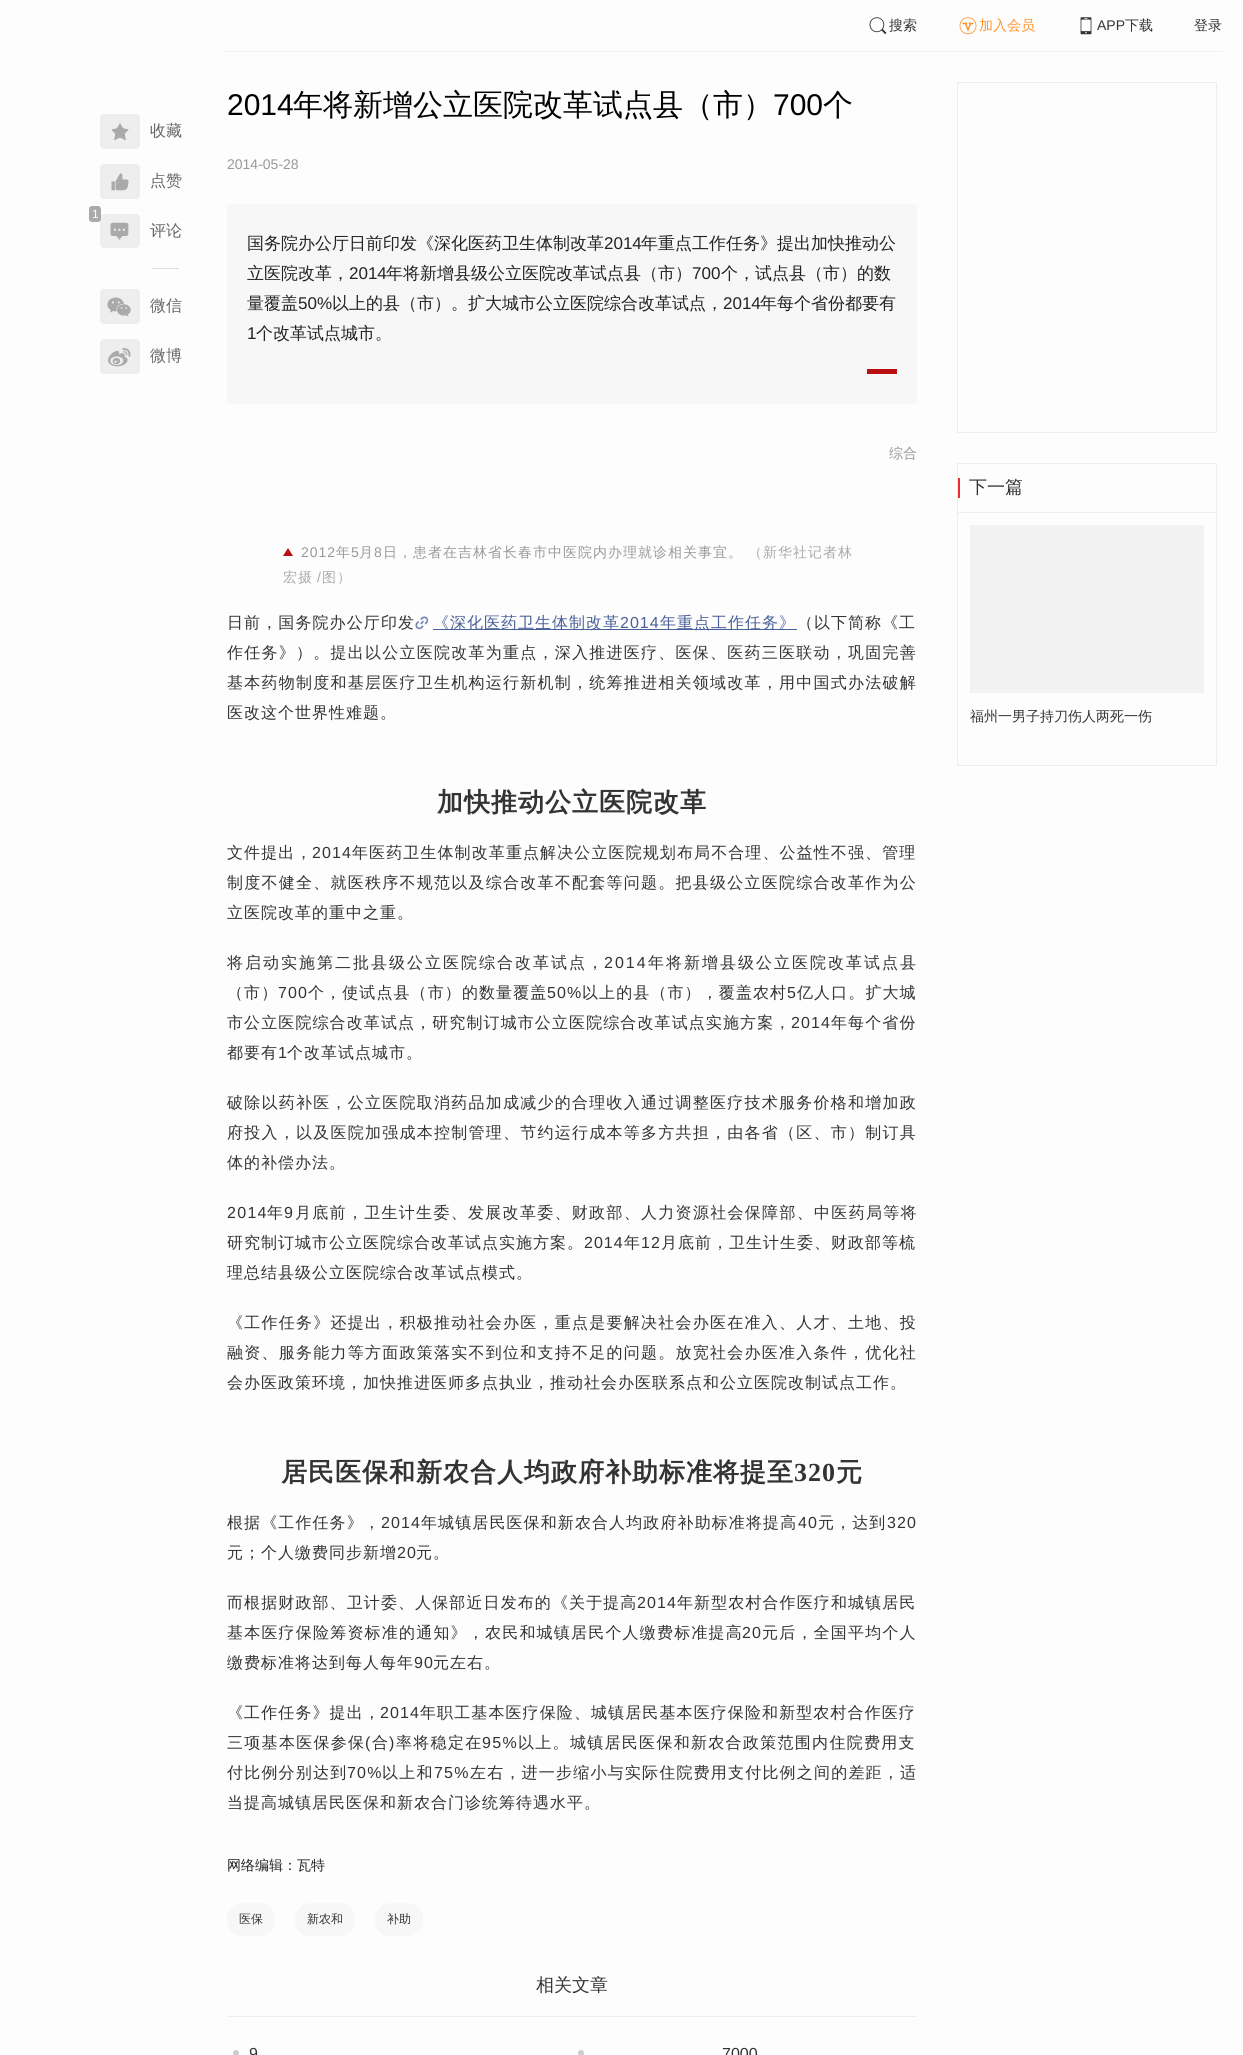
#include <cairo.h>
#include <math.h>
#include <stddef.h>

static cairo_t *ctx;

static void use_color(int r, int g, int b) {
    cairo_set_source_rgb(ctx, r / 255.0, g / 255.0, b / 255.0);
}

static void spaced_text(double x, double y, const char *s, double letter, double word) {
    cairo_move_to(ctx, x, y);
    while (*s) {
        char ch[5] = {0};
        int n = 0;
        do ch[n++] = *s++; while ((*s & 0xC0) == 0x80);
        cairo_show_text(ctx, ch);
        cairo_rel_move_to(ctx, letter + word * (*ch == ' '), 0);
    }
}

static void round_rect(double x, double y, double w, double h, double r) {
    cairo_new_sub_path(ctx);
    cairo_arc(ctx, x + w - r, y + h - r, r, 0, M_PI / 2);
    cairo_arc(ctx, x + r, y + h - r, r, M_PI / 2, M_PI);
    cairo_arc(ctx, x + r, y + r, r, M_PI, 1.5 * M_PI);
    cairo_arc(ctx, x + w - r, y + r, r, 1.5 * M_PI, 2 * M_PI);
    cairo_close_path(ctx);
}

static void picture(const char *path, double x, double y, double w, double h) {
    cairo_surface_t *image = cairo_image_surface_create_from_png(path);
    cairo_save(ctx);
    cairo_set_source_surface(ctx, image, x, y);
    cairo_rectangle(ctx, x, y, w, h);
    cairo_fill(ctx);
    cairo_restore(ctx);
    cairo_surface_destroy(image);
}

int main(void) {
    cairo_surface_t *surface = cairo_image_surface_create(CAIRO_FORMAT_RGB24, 1243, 2055);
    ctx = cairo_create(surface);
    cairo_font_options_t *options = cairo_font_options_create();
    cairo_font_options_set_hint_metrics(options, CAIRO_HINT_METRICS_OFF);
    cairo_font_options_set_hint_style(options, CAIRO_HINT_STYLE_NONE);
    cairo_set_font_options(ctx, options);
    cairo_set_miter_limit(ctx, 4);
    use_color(253, 253, 253);
    cairo_paint(ctx);
    use_color(238, 238, 238);
    round_rect(100, 114, 40, 35, 4);
    cairo_fill(ctx);
    picture("img1.png", 111, 123, 18, 18);
    cairo_select_font_face(ctx, "WenQuanYi Zen Hei Medium", CAIRO_FONT_SLANT_NORMAL, CAIRO_FONT_WEIGHT_NORMAL);
    cairo_set_font_size(ctx, 16);
    use_color(102, 102, 102);
    cairo_move_to(ctx, 150, 136);
    cairo_show_text(ctx, "收藏");
    use_color(238, 238, 238);
    round_rect(100, 164, 40, 35, 4);
    cairo_fill(ctx);
    picture("img2.png", 111, 173, 18, 18);
    use_color(102, 102, 102);
    cairo_move_to(ctx, 150, 186);
    cairo_show_text(ctx, "点赞");
    use_color(238, 238, 238);
    round_rect(100, 214, 40, 34, 4);
    cairo_fill(ctx);
    use_color(170, 170, 170);
    round_rect(89, 206, 12, 16, 3);
    cairo_fill(ctx);
    cairo_select_font_face(ctx, "Liberation Sans", CAIRO_FONT_SLANT_NORMAL, CAIRO_FONT_WEIGHT_NORMAL);
    cairo_set_font_size(ctx, 12);
    use_color(255, 255, 255);
    cairo_move_to(ctx, 92, 218);
    cairo_show_text(ctx, "1");
    picture("img3.png", 110, 222, 19, 18);
    cairo_select_font_face(ctx, "WenQuanYi Zen Hei Medium", CAIRO_FONT_SLANT_NORMAL, CAIRO_FONT_WEIGHT_NORMAL);
    cairo_set_font_size(ctx, 16);
    use_color(102, 102, 102);
    cairo_move_to(ctx, 150, 236);
    cairo_show_text(ctx, "评论");
    use_color(221, 221, 221);
    cairo_rectangle(ctx, 152, 268, 27, 1);
    cairo_fill(ctx);
    use_color(238, 238, 238);
    round_rect(100, 289, 40, 35, 4);
    cairo_fill(ctx);
    picture("img4.png", 107, 297, 24, 20);
    use_color(102, 102, 102);
    cairo_move_to(ctx, 150, 311);
    cairo_show_text(ctx, "微信");
    use_color(238, 238, 238);
    round_rect(100, 339, 40, 35, 4);
    cairo_fill(ctx);
    picture("img5.png", 108, 348, 23, 19);
    use_color(102, 102, 102);
    cairo_move_to(ctx, 150, 361);
    cairo_show_text(ctx, "微博");
    use_color(242, 242, 242);
    cairo_rectangle(ctx, 222, 51, 1000, 1);
    cairo_fill(ctx);
    picture("img6.png", 869, 17, 18, 18);
    cairo_set_font_size(ctx, 14);
    use_color(51, 51, 51);
    cairo_move_to(ctx, 889, 30);
    cairo_show_text(ctx, "搜索");
    picture("img7.png", 959, 17, 18, 18);
    use_color(255, 147, 44);
    cairo_move_to(ctx, 979, 30);
    cairo_show_text(ctx, "加入会员");
    picture("img8.png", 1080, 17, 12, 18);
    cairo_select_font_face(ctx, "Liberation Sans", CAIRO_FONT_SLANT_NORMAL, CAIRO_FONT_WEIGHT_NORMAL);
    use_color(51, 51, 51);
    cairo_move_to(ctx, 1097, 30);
    cairo_show_text(ctx, "APP");
    cairo_select_font_face(ctx, "WenQuanYi Zen Hei Medium", CAIRO_FONT_SLANT_NORMAL, CAIRO_FONT_WEIGHT_NORMAL);
    cairo_move_to(ctx, 1125, 30);
    cairo_show_text(ctx, "下载");
    cairo_move_to(ctx, 1194, 30);
    cairo_show_text(ctx, "登录");
    cairo_select_font_face(ctx, "Liberation Sans", CAIRO_FONT_SLANT_NORMAL, CAIRO_FONT_WEIGHT_NORMAL);
    cairo_set_font_size(ctx, 30);
    use_color(0, 0, 0);
    cairo_move_to(ctx, 227, 115);
    cairo_show_text(ctx, "2014");
    cairo_select_font_face(ctx, "WenQuanYi Zen Hei Medium", CAIRO_FONT_SLANT_NORMAL, CAIRO_FONT_WEIGHT_NORMAL);
    cairo_move_to(ctx, 293, 115);
    cairo_show_text(ctx, "年将新增公立医院改革试点县（市）");
    cairo_select_font_face(ctx, "Liberation Sans", CAIRO_FONT_SLANT_NORMAL, CAIRO_FONT_WEIGHT_NORMAL);
    cairo_move_to(ctx, 773, 115);
    cairo_show_text(ctx, "700");
    cairo_select_font_face(ctx, "WenQuanYi Zen Hei Medium", CAIRO_FONT_SLANT_NORMAL, CAIRO_FONT_WEIGHT_NORMAL);
    cairo_move_to(ctx, 823, 115);
    cairo_show_text(ctx, "个");
    cairo_select_font_face(ctx, "Liberation Sans", CAIRO_FONT_SLANT_NORMAL, CAIRO_FONT_WEIGHT_NORMAL);
    cairo_set_font_size(ctx, 14);
    use_color(153, 153, 153);
    cairo_move_to(ctx, 227, 169);
    cairo_show_text(ctx, "2014-05-28");
    use_color(247, 247, 247);
    cairo_rectangle(ctx, 227, 204, 690, 200);
    cairo_fill(ctx);
    cairo_select_font_face(ctx, "WenQuanYi Zen Hei Medium", CAIRO_FONT_SLANT_NORMAL, CAIRO_FONT_WEIGHT_NORMAL);
    cairo_set_font_size(ctx, 17);
    use_color(34, 34, 34);
    cairo_move_to(ctx, 247, 249);
    cairo_show_text(ctx, "国务院办公厅日前印发《深化医药卫生体制改革");
    cairo_select_font_face(ctx, "Liberation Sans", CAIRO_FONT_SLANT_NORMAL, CAIRO_FONT_WEIGHT_NORMAL);
    cairo_move_to(ctx, 604, 249);
    cairo_show_text(ctx, "2014");
    cairo_select_font_face(ctx, "WenQuanYi Zen Hei Medium", CAIRO_FONT_SLANT_NORMAL, CAIRO_FONT_WEIGHT_NORMAL);
    cairo_move_to(ctx, 641, 249);
    cairo_show_text(ctx, "年重点工作任务》提出加快推动公");
    cairo_move_to(ctx, 247, 279);
    cairo_show_text(ctx, "立医院改革，");
    cairo_select_font_face(ctx, "Liberation Sans", CAIRO_FONT_SLANT_NORMAL, CAIRO_FONT_WEIGHT_NORMAL);
    cairo_move_to(ctx, 349, 279);
    cairo_show_text(ctx, "2014");
    cairo_select_font_face(ctx, "WenQuanYi Zen Hei Medium", CAIRO_FONT_SLANT_NORMAL, CAIRO_FONT_WEIGHT_NORMAL);
    cairo_move_to(ctx, 386, 279);
    cairo_show_text(ctx, "年将新增县级公立医院改革试点县（市）");
    cairo_select_font_face(ctx, "Liberation Sans", CAIRO_FONT_SLANT_NORMAL, CAIRO_FONT_WEIGHT_NORMAL);
    cairo_move_to(ctx, 692, 279);
    cairo_show_text(ctx, "700");
    cairo_select_font_face(ctx, "WenQuanYi Zen Hei Medium", CAIRO_FONT_SLANT_NORMAL, CAIRO_FONT_WEIGHT_NORMAL);
    cairo_move_to(ctx, 721, 279);
    cairo_show_text(ctx, "个，试点县（市）的数");
    cairo_move_to(ctx, 247, 309);
    cairo_show_text(ctx, "量覆盖");
    cairo_select_font_face(ctx, "Liberation Sans", CAIRO_FONT_SLANT_NORMAL, CAIRO_FONT_WEIGHT_NORMAL);
    cairo_move_to(ctx, 298, 309);
    cairo_show_text(ctx, "50%");
    cairo_select_font_face(ctx, "WenQuanYi Zen Hei Medium", CAIRO_FONT_SLANT_NORMAL, CAIRO_FONT_WEIGHT_NORMAL);
    cairo_move_to(ctx, 332, 309);
    cairo_show_text(ctx, "以上的县（市）。扩大城市公立医院综合改革试点，");
    cairo_select_font_face(ctx, "Liberation Sans", CAIRO_FONT_SLANT_NORMAL, CAIRO_FONT_WEIGHT_NORMAL);
    cairo_move_to(ctx, 723, 309);
    cairo_show_text(ctx, "2014");
    cairo_select_font_face(ctx, "WenQuanYi Zen Hei Medium", CAIRO_FONT_SLANT_NORMAL, CAIRO_FONT_WEIGHT_NORMAL);
    cairo_move_to(ctx, 760, 309);
    cairo_show_text(ctx, "年每个省份都要有");
    cairo_select_font_face(ctx, "Liberation Sans", CAIRO_FONT_SLANT_NORMAL, CAIRO_FONT_WEIGHT_NORMAL);
    cairo_move_to(ctx, 247, 339);
    cairo_show_text(ctx, "1");
    cairo_select_font_face(ctx, "WenQuanYi Zen Hei Medium", CAIRO_FONT_SLANT_NORMAL, CAIRO_FONT_WEIGHT_NORMAL);
    cairo_move_to(ctx, 256, 339);
    cairo_show_text(ctx, "个改革试点城市。");
    use_color(186, 16, 16);
    cairo_rectangle(ctx, 867, 369, 30, 5);
    cairo_fill(ctx);
    cairo_set_font_size(ctx, 14);
    use_color(153, 153, 153);
    cairo_move_to(ctx, 889, 458);
    cairo_show_text(ctx, "综合");
    use_color(186, 16, 16);
    cairo_new_path(ctx);
    cairo_move_to(ctx, 293, 556);
    cairo_line_to(ctx, 283, 556);
    cairo_line_to(ctx, 288, 548);
    cairo_close_path(ctx);
    cairo_fill(ctx);
    cairo_select_font_face(ctx, "Liberation Sans", CAIRO_FONT_SLANT_NORMAL, CAIRO_FONT_WEIGHT_NORMAL);
    use_color(153, 153, 153);
    spaced_text(301, 557, "2012", 1, 0);
    cairo_select_font_face(ctx, "WenQuanYi Zen Hei Medium", CAIRO_FONT_SLANT_NORMAL, CAIRO_FONT_WEIGHT_NORMAL);
    spaced_text(336, 557, "年", 1, 0);
    cairo_select_font_face(ctx, "Liberation Sans", CAIRO_FONT_SLANT_NORMAL, CAIRO_FONT_WEIGHT_NORMAL);
    spaced_text(351, 557, "5", 1, 0);
    cairo_select_font_face(ctx, "WenQuanYi Zen Hei Medium", CAIRO_FONT_SLANT_NORMAL, CAIRO_FONT_WEIGHT_NORMAL);
    spaced_text(359, 557, "月", 1, 0);
    cairo_select_font_face(ctx, "Liberation Sans", CAIRO_FONT_SLANT_NORMAL, CAIRO_FONT_WEIGHT_NORMAL);
    spaced_text(374, 557, "8", 1, 0);
    cairo_select_font_face(ctx, "WenQuanYi Zen Hei Medium", CAIRO_FONT_SLANT_NORMAL, CAIRO_FONT_WEIGHT_NORMAL);
    spaced_text(383, 557, "日，患者在吉林省长春市中医院内办理就诊相关事宜。", 1, 0);
    use_color(170, 170, 170);
    spaced_text(748, 557, "（新华社记者林", 1, 0);
    spaced_text(283, 582, "宏摄", 1, 0);
    cairo_select_font_face(ctx, "Liberation Sans", CAIRO_FONT_SLANT_NORMAL, CAIRO_FONT_WEIGHT_NORMAL);
    spaced_text(317, 582, "/", 1, 0);
    cairo_select_font_face(ctx, "WenQuanYi Zen Hei Medium", CAIRO_FONT_SLANT_NORMAL, CAIRO_FONT_WEIGHT_NORMAL);
    spaced_text(322, 582, "图）", 1, 0);
    cairo_set_font_size(ctx, 16);
    use_color(51, 51, 51);
    spaced_text(227, 628, "日前，国务院办公厅印发", 1.1, 0);
    picture("img9.png", 415, 616, 14, 14);
    use_color(73, 95, 153);
    cairo_rectangle(ctx, 433, 629, 364, 1);
    cairo_fill(ctx);
    spaced_text(433, 628, "《深化医药卫生体制改革", 1, 0);
    cairo_select_font_face(ctx, "Liberation Sans", CAIRO_FONT_SLANT_NORMAL, CAIRO_FONT_WEIGHT_NORMAL);
    spaced_text(620, 628, "2014", 1, 0);
    cairo_select_font_face(ctx, "WenQuanYi Zen Hei Medium", CAIRO_FONT_SLANT_NORMAL, CAIRO_FONT_WEIGHT_NORMAL);
    spaced_text(660, 628, "年重点工作任务》", 1, 0);
    use_color(51, 51, 51);
    spaced_text(797, 628, "（以下简称《工", 1, 0);
    spaced_text(227, 658, "作任务》）。提出以公立医院改革为重点，深入推进医疗、医保、医药三医联动，巩固完善", 1.25, 0);
    spaced_text(227, 688, "基本药物制度和基层医疗卫生机构运行新机制，统筹推进相关领域改革，用中国式办法破解", 1.25, 0);
    spaced_text(227, 718, "医改这个世界性难题。", 1, 0);
    cairo_select_font_face(ctx, "WenQuanYi Zen Hei", CAIRO_FONT_SLANT_NORMAL, CAIRO_FONT_WEIGHT_BOLD);
    cairo_set_font_size(ctx, 26);
    spaced_text(437, 811, "加快推动公立医院改革", 1, 0);
    cairo_select_font_face(ctx, "WenQuanYi Zen Hei Medium", CAIRO_FONT_SLANT_NORMAL, CAIRO_FONT_WEIGHT_NORMAL);
    cairo_set_font_size(ctx, 16);
    spaced_text(227, 858, "文件提出，", 1.1, 0);
    cairo_select_font_face(ctx, "Liberation Sans", CAIRO_FONT_SLANT_NORMAL, CAIRO_FONT_WEIGHT_NORMAL);
    spaced_text(312, 858, "2014", 1.1, 0);
    cairo_select_font_face(ctx, "WenQuanYi Zen Hei Medium", CAIRO_FONT_SLANT_NORMAL, CAIRO_FONT_WEIGHT_NORMAL);
    spaced_text(352, 858, "年医药卫生体制改革重点解决公立医院规划布局不合理、公益性不强、管理", 1.1, 0);
    spaced_text(227, 888, "制度不健全、就医秩序不规范以及综合改革不配套等问题。把县级公立医院综合改革作为公", 1.25, 0);
    spaced_text(227, 918, "立医院改革的重中之重。", 1, 0);
    spaced_text(227, 968, "将启动实施第二批县级公立医院综合改革试点，", 2, 0);
    cairo_select_font_face(ctx, "Liberation Sans", CAIRO_FONT_SLANT_NORMAL, CAIRO_FONT_WEIGHT_NORMAL);
    spaced_text(604, 968, "2014", 2, 0);
    cairo_select_font_face(ctx, "WenQuanYi Zen Hei Medium", CAIRO_FONT_SLANT_NORMAL, CAIRO_FONT_WEIGHT_NORMAL);
    spaced_text(648, 968, "年将新增县级公立医院改革试点县", 2, 0);
    spaced_text(227, 998, "（市）", 1.1, 0);
    cairo_select_font_face(ctx, "Liberation Sans", CAIRO_FONT_SLANT_NORMAL, CAIRO_FONT_WEIGHT_NORMAL);
    spaced_text(278, 998, "700", 1.1, 0);
    cairo_select_font_face(ctx, "WenQuanYi Zen Hei Medium", CAIRO_FONT_SLANT_NORMAL, CAIRO_FONT_WEIGHT_NORMAL);
    spaced_text(308, 998, "个，使试点县（市）的数量覆盖", 1.1, 0);
    cairo_select_font_face(ctx, "Liberation Sans", CAIRO_FONT_SLANT_NORMAL, CAIRO_FONT_WEIGHT_NORMAL);
    spaced_text(547, 998, "50%", 1.1, 0);
    cairo_select_font_face(ctx, "WenQuanYi Zen Hei Medium", CAIRO_FONT_SLANT_NORMAL, CAIRO_FONT_WEIGHT_NORMAL);
    spaced_text(582, 998, "以上的县（市），覆盖农村", 1.1, 0);
    cairo_select_font_face(ctx, "Liberation Sans", CAIRO_FONT_SLANT_NORMAL, CAIRO_FONT_WEIGHT_NORMAL);
    spaced_text(787, 998, "5", 1.1, 0);
    cairo_select_font_face(ctx, "WenQuanYi Zen Hei Medium", CAIRO_FONT_SLANT_NORMAL, CAIRO_FONT_WEIGHT_NORMAL);
    spaced_text(797, 998, "亿人口。扩大城", 1.1, 0);
    spaced_text(227, 1028, "市公立医院综合改革试点，研究制订城市公立医院综合改革试点实施方案，", 1.1, 0);
    cairo_select_font_face(ctx, "Liberation Sans", CAIRO_FONT_SLANT_NORMAL, CAIRO_FONT_WEIGHT_NORMAL);
    spaced_text(791, 1028, "2014", 1.1, 0);
    cairo_select_font_face(ctx, "WenQuanYi Zen Hei Medium", CAIRO_FONT_SLANT_NORMAL, CAIRO_FONT_WEIGHT_NORMAL);
    spaced_text(831, 1028, "年每个省份", 1.1, 0);
    spaced_text(227, 1058, "都要有", 1, 0);
    cairo_select_font_face(ctx, "Liberation Sans", CAIRO_FONT_SLANT_NORMAL, CAIRO_FONT_WEIGHT_NORMAL);
    spaced_text(278, 1058, "1", 1, 0);
    cairo_select_font_face(ctx, "WenQuanYi Zen Hei Medium", CAIRO_FONT_SLANT_NORMAL, CAIRO_FONT_WEIGHT_NORMAL);
    spaced_text(287, 1058, "个改革试点城市。", 1, 0);
    spaced_text(227, 1108, "破除以药补医，公立医院取消药品加成减少的合理收入通过调整医疗技术服务价格和增加政", 1.25, 0);
    spaced_text(227, 1138, "府投入，以及医院加强成本控制管理、节约运行成本等多方共担，由各省（区、市）制订具", 1.25, 0);
    spaced_text(227, 1168, "体的补偿办法。", 1, 0);
    cairo_select_font_face(ctx, "Liberation Sans", CAIRO_FONT_SLANT_NORMAL, CAIRO_FONT_WEIGHT_NORMAL);
    spaced_text(227, 1218, "2014", 1.3, 0);
    cairo_select_font_face(ctx, "WenQuanYi Zen Hei Medium", CAIRO_FONT_SLANT_NORMAL, CAIRO_FONT_WEIGHT_NORMAL);
    spaced_text(267, 1218, "年", 1.3, 0);
    cairo_select_font_face(ctx, "Liberation Sans", CAIRO_FONT_SLANT_NORMAL, CAIRO_FONT_WEIGHT_NORMAL);
    spaced_text(284, 1218, "9", 1.3, 0);
    cairo_select_font_face(ctx, "WenQuanYi Zen Hei Medium", CAIRO_FONT_SLANT_NORMAL, CAIRO_FONT_WEIGHT_NORMAL);
    spaced_text(295, 1218, "月底前，卫生计生委、发展改革委、财政部、人力资源社会保障部、中医药局等将", 1.3, 0);
    spaced_text(227, 1248, "研究制订城市公立医院综合改革试点实施方案。", 1, 0);
    cairo_select_font_face(ctx, "Liberation Sans", CAIRO_FONT_SLANT_NORMAL, CAIRO_FONT_WEIGHT_NORMAL);
    spaced_text(584, 1248, "2014", 1, 0);
    cairo_select_font_face(ctx, "WenQuanYi Zen Hei Medium", CAIRO_FONT_SLANT_NORMAL, CAIRO_FONT_WEIGHT_NORMAL);
    spaced_text(624, 1248, "年", 1, 0);
    cairo_select_font_face(ctx, "Liberation Sans", CAIRO_FONT_SLANT_NORMAL, CAIRO_FONT_WEIGHT_NORMAL);
    spaced_text(641, 1248, "12", 1, 0);
    cairo_select_font_face(ctx, "WenQuanYi Zen Hei Medium", CAIRO_FONT_SLANT_NORMAL, CAIRO_FONT_WEIGHT_NORMAL);
    spaced_text(661, 1248, "月底前，卫生计生委、财政部等梳", 1, 0);
    spaced_text(227, 1278, "理总结县级公立医院综合改革试点模式。", 1, 0);
    spaced_text(227, 1328, "《工作任务》还提出，积极推动社会办医，重点是要解决社会办医在准入、人才、土地、投", 1.25, 0);
    spaced_text(227, 1358, "融资、服务能力等方面政策落实不到位和支持不足的问题。放宽社会办医准入条件，优化社", 1.25, 0);
    spaced_text(227, 1388, "会办医政策环境，加快推进医师多点执业，推动社会办医联系点和公立医院改制试点工作。", 1, 0);
    cairo_select_font_face(ctx, "WenQuanYi Zen Hei", CAIRO_FONT_SLANT_NORMAL, CAIRO_FONT_WEIGHT_BOLD);
    cairo_set_font_size(ctx, 26);
    spaced_text(281, 1481, "居民医保和新农合人均政府补助标准将提至", 1, 0);
    cairo_select_font_face(ctx, "Liberation Serif", CAIRO_FONT_SLANT_NORMAL, CAIRO_FONT_WEIGHT_BOLD);
    spaced_text(794, 1481, "320", 1, 0);
    cairo_select_font_face(ctx, "WenQuanYi Zen Hei", CAIRO_FONT_SLANT_NORMAL, CAIRO_FONT_WEIGHT_BOLD);
    spaced_text(836, 1481, "元", 1, 0);
    cairo_select_font_face(ctx, "WenQuanYi Zen Hei Medium", CAIRO_FONT_SLANT_NORMAL, CAIRO_FONT_WEIGHT_NORMAL);
    cairo_set_font_size(ctx, 16);
    spaced_text(227, 1528, "根据《工作任务》，", 1.1, 0);
    cairo_select_font_face(ctx, "Liberation Sans", CAIRO_FONT_SLANT_NORMAL, CAIRO_FONT_WEIGHT_NORMAL);
    spaced_text(381, 1528, "2014", 1.1, 0);
    cairo_select_font_face(ctx, "WenQuanYi Zen Hei Medium", CAIRO_FONT_SLANT_NORMAL, CAIRO_FONT_WEIGHT_NORMAL);
    spaced_text(421, 1528, "年城镇居民医保和新农合人均政府补助标准将提高", 1.1, 0);
    cairo_select_font_face(ctx, "Liberation Sans", CAIRO_FONT_SLANT_NORMAL, CAIRO_FONT_WEIGHT_NORMAL);
    spaced_text(798, 1528, "40", 1.1, 0);
    cairo_select_font_face(ctx, "WenQuanYi Zen Hei Medium", CAIRO_FONT_SLANT_NORMAL, CAIRO_FONT_WEIGHT_NORMAL);
    spaced_text(818, 1528, "元，达到", 1.1, 0);
    cairo_select_font_face(ctx, "Liberation Sans", CAIRO_FONT_SLANT_NORMAL, CAIRO_FONT_WEIGHT_NORMAL);
    spaced_text(887, 1528, "320", 1.1, 0);
    cairo_select_font_face(ctx, "WenQuanYi Zen Hei Medium", CAIRO_FONT_SLANT_NORMAL, CAIRO_FONT_WEIGHT_NORMAL);
    spaced_text(227, 1558, "元；个人缴费同步新增", 1, 0);
    cairo_select_font_face(ctx, "Liberation Sans", CAIRO_FONT_SLANT_NORMAL, CAIRO_FONT_WEIGHT_NORMAL);
    spaced_text(397, 1558, "20", 1, 0);
    cairo_select_font_face(ctx, "WenQuanYi Zen Hei Medium", CAIRO_FONT_SLANT_NORMAL, CAIRO_FONT_WEIGHT_NORMAL);
    spaced_text(416, 1558, "元。", 1, 0);
    spaced_text(227, 1608, "而根据财政部、卫计委、人保部近日发布的《关于提高", 1.1, 0);
    cairo_select_font_face(ctx, "Liberation Sans", CAIRO_FONT_SLANT_NORMAL, CAIRO_FONT_WEIGHT_NORMAL);
    spaced_text(637, 1608, "2014", 1.1, 0);
    cairo_select_font_face(ctx, "WenQuanYi Zen Hei Medium", CAIRO_FONT_SLANT_NORMAL, CAIRO_FONT_WEIGHT_NORMAL);
    spaced_text(677, 1608, "年新型农村合作医疗和城镇居民", 1.1, 0);
    spaced_text(227, 1638, "基本医疗保险筹资标准的通知》，农民和城镇居民个人缴费标准提高", 1.2, 0);
    cairo_select_font_face(ctx, "Liberation Sans", CAIRO_FONT_SLANT_NORMAL, CAIRO_FONT_WEIGHT_NORMAL);
    spaced_text(742, 1638, "20", 1.2, 0);
    cairo_select_font_face(ctx, "WenQuanYi Zen Hei Medium", CAIRO_FONT_SLANT_NORMAL, CAIRO_FONT_WEIGHT_NORMAL);
    spaced_text(762, 1638, "元后，全国平均个人", 1.2, 0);
    spaced_text(227, 1668, "缴费标准将达到每人每年", 1, 0);
    cairo_select_font_face(ctx, "Liberation Sans", CAIRO_FONT_SLANT_NORMAL, CAIRO_FONT_WEIGHT_NORMAL);
    spaced_text(414, 1668, "90", 1, 0);
    cairo_select_font_face(ctx, "WenQuanYi Zen Hei Medium", CAIRO_FONT_SLANT_NORMAL, CAIRO_FONT_WEIGHT_NORMAL);
    spaced_text(433, 1668, "元左右。", 1, 0);
    spaced_text(227, 1718, "《工作任务》提出，", 1.1, 0);
    cairo_select_font_face(ctx, "Liberation Sans", CAIRO_FONT_SLANT_NORMAL, CAIRO_FONT_WEIGHT_NORMAL);
    spaced_text(380, 1718, "2014", 1.1, 0);
    cairo_select_font_face(ctx, "WenQuanYi Zen Hei Medium", CAIRO_FONT_SLANT_NORMAL, CAIRO_FONT_WEIGHT_NORMAL);
    spaced_text(420, 1718, "年职工基本医疗保险、城镇居民基本医疗保险和新型农村合作医疗", 1.1, 0);
    spaced_text(227, 1748, "三项基本医保参保", 1.3, 0);
    cairo_select_font_face(ctx, "Liberation Sans", CAIRO_FONT_SLANT_NORMAL, CAIRO_FONT_WEIGHT_NORMAL);
    spaced_text(365, 1748, "(", 1.3, 0);
    cairo_select_font_face(ctx, "WenQuanYi Zen Hei Medium", CAIRO_FONT_SLANT_NORMAL, CAIRO_FONT_WEIGHT_NORMAL);
    spaced_text(372, 1748, "合", 1.3, 0);
    cairo_select_font_face(ctx, "Liberation Sans", CAIRO_FONT_SLANT_NORMAL, CAIRO_FONT_WEIGHT_NORMAL);
    spaced_text(389, 1748, ")", 1.3, 0);
    cairo_select_font_face(ctx, "WenQuanYi Zen Hei Medium", CAIRO_FONT_SLANT_NORMAL, CAIRO_FONT_WEIGHT_NORMAL);
    spaced_text(396, 1748, "率将稳定在", 1.3, 0);
    cairo_select_font_face(ctx, "Liberation Sans", CAIRO_FONT_SLANT_NORMAL, CAIRO_FONT_WEIGHT_NORMAL);
    spaced_text(482, 1748, "95%", 1.3, 0);
    cairo_select_font_face(ctx, "WenQuanYi Zen Hei Medium", CAIRO_FONT_SLANT_NORMAL, CAIRO_FONT_WEIGHT_NORMAL);
    spaced_text(518, 1748, "以上。城镇居民医保和新农合政策范围内住院费用支", 1.3, 0);
    spaced_text(227, 1778, "付比例分别达到", 1.2, 0);
    cairo_select_font_face(ctx, "Liberation Sans", CAIRO_FONT_SLANT_NORMAL, CAIRO_FONT_WEIGHT_NORMAL);
    spaced_text(347, 1778, "70%", 1.2, 0);
    cairo_select_font_face(ctx, "WenQuanYi Zen Hei Medium", CAIRO_FONT_SLANT_NORMAL, CAIRO_FONT_WEIGHT_NORMAL);
    spaced_text(382, 1778, "以上和", 1.2, 0);
    cairo_select_font_face(ctx, "Liberation Sans", CAIRO_FONT_SLANT_NORMAL, CAIRO_FONT_WEIGHT_NORMAL);
    spaced_text(434, 1778, "75%", 1.2, 0);
    cairo_select_font_face(ctx, "WenQuanYi Zen Hei Medium", CAIRO_FONT_SLANT_NORMAL, CAIRO_FONT_WEIGHT_NORMAL);
    spaced_text(470, 1778, "左右，进一步缩小与实际住院费用支付比例之间的差距，适", 1.2, 0);
    spaced_text(227, 1808, "当提高城镇居民医保和新农合门诊统筹待遇水平。", 1, 0);
    cairo_set_font_size(ctx, 14);
    use_color(34, 34, 34);
    cairo_move_to(ctx, 227, 1870);
    cairo_show_text(ctx, "网络编辑：瓦特");
    use_color(247, 247, 247);
    round_rect(227, 1903, 48, 33, 15);
    cairo_fill(ctx);
    cairo_set_font_size(ctx, 12);
    use_color(51, 51, 51);
    cairo_move_to(ctx, 239, 1923);
    cairo_show_text(ctx, "医保");
    use_color(247, 247, 247);
    round_rect(295, 1903, 60, 33, 15);
    cairo_fill(ctx);
    use_color(51, 51, 51);
    cairo_move_to(ctx, 307, 1923);
    cairo_show_text(ctx, "新农和");
    use_color(247, 247, 247);
    round_rect(375, 1903, 48, 33, 15);
    cairo_fill(ctx);
    use_color(51, 51, 51);
    cairo_move_to(ctx, 387, 1923);
    cairo_show_text(ctx, "补助");
    use_color(238, 238, 238);
    cairo_rectangle(ctx, 227, 2016, 690, 1);
    cairo_fill(ctx);
    cairo_set_font_size(ctx, 18);
    use_color(51, 51, 51);
    cairo_move_to(ctx, 536, 1991);
    cairo_show_text(ctx, "相关文章");
    use_color(204, 204, 204);
    cairo_new_path(ctx);
    cairo_arc(ctx, 236, 2053, 3, 0, 2 * M_PI);
    cairo_fill(ctx);
    cairo_select_font_face(ctx, "Liberation Sans", CAIRO_FONT_SLANT_NORMAL, CAIRO_FONT_WEIGHT_NORMAL);
    cairo_set_font_size(ctx, 16);
    use_color(51, 51, 51);
    cairo_move_to(ctx, 249, 2059);
    cairo_show_text(ctx, "9");
    use_color(204, 204, 204);
    cairo_new_path(ctx);
    cairo_arc(ctx, 581, 2053, 3, 0, 2 * M_PI);
    cairo_fill(ctx);
    use_color(51, 51, 51);
    cairo_move_to(ctx, 722, 2059);
    cairo_show_text(ctx, "7000");
    cairo_rectangle(ctx, 957.5, 82.5, 259, 350);
    use_color(238, 238, 238);
    cairo_set_line_width(ctx, 1);
    cairo_stroke(ctx);
    cairo_rectangle(ctx, 957.5, 463.5, 259, 302);
    cairo_stroke(ctx);
    cairo_rectangle(ctx, 958, 512, 258, 1);
    cairo_fill(ctx);
    use_color(238, 44, 52);
    cairo_rectangle(ctx, 958, 478, 2, 20);
    cairo_fill(ctx);
    cairo_select_font_face(ctx, "WenQuanYi Zen Hei Medium", CAIRO_FONT_SLANT_NORMAL, CAIRO_FONT_WEIGHT_NORMAL);
    cairo_set_font_size(ctx, 18);
    use_color(51, 51, 51);
    cairo_move_to(ctx, 969, 493);
    cairo_show_text(ctx, "下一篇");
    use_color(242, 242, 242);
    cairo_rectangle(ctx, 970, 525, 234, 168);
    cairo_fill(ctx);
    cairo_set_font_size(ctx, 14);
    use_color(51, 51, 51);
    cairo_move_to(ctx, 970, 721);
    cairo_show_text(ctx, "福州一男子持刀伤人两死一伤");
    cairo_surface_write_to_png(surface, "result.png");
    cairo_font_options_destroy(options);
    cairo_destroy(ctx);
    cairo_surface_destroy(surface);
    return 0;
}
